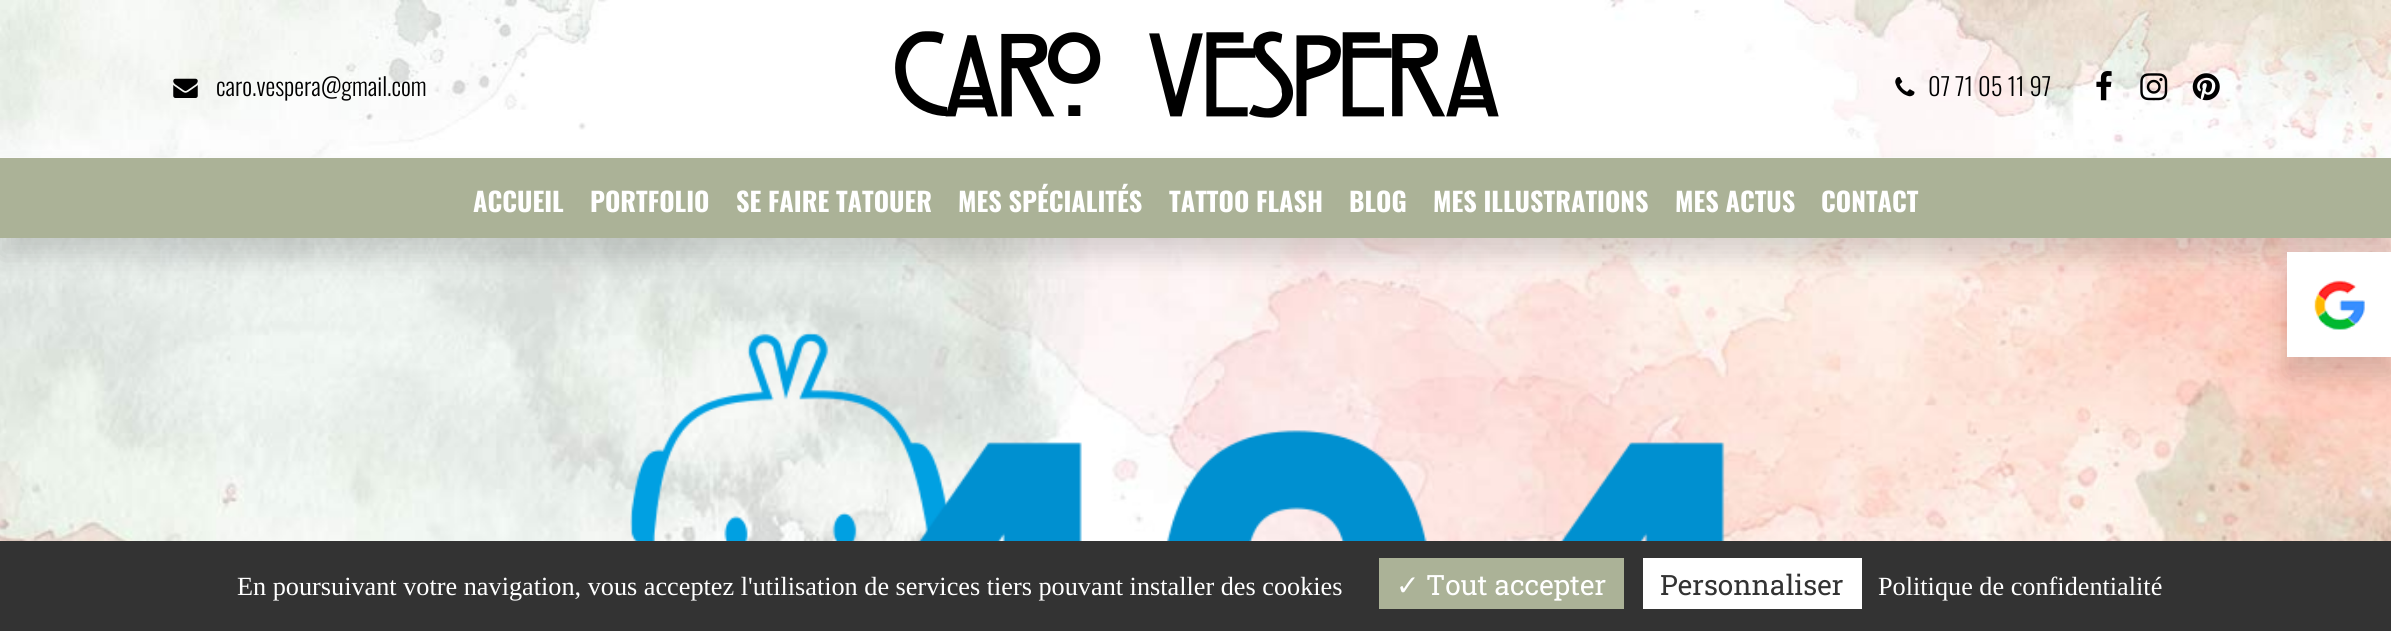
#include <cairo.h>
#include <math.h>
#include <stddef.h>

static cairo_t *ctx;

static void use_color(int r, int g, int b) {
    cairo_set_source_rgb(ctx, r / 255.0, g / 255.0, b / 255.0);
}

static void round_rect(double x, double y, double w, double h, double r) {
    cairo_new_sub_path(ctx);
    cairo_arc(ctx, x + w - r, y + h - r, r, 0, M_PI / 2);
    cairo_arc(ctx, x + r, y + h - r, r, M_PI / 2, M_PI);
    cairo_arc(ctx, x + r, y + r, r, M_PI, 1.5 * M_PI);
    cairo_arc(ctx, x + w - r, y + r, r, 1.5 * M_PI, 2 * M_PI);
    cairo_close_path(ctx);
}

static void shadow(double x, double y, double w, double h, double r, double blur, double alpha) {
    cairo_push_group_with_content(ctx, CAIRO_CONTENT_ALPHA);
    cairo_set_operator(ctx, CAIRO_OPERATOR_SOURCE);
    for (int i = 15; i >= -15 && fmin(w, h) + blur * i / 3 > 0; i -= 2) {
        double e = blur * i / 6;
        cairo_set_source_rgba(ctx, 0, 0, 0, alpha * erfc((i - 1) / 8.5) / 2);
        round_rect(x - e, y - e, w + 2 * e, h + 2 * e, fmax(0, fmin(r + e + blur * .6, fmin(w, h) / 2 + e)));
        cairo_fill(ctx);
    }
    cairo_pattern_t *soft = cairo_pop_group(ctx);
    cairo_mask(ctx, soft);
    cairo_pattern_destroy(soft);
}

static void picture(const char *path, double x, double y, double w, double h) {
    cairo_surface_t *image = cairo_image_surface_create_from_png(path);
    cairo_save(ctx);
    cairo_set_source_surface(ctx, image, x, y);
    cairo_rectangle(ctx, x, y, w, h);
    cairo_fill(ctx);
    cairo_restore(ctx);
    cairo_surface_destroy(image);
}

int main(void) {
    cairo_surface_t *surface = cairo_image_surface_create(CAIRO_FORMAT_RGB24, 2391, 631);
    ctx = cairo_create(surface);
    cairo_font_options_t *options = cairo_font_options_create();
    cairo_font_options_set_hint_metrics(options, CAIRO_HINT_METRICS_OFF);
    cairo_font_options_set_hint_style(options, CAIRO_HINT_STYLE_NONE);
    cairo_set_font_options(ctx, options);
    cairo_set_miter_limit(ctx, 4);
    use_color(255, 255, 255);
    cairo_paint(ctx);
    picture("img1.png", 0, 0, 2391, 158);
    picture("img2.png", 173, 78, 25, 20);
    cairo_select_font_face(ctx, "Oswald Light", CAIRO_FONT_SLANT_NORMAL, CAIRO_FONT_WEIGHT_NORMAL);
    cairo_set_font_size(ctx, 24.5);
    use_color(0, 0, 0);
    cairo_move_to(ctx, 216, 96);
    cairo_show_text(ctx, "caro.vespera@gmail.com");
    picture("img3.png", 1895, 77, 20, 20);
    cairo_move_to(ctx, 1928, 96);
    cairo_show_text(ctx, "07 71 05 11 97");
    picture("img4.png", 2096, 71, 16, 30);
    picture("img5.png", 2140, 73, 28, 28);
    picture("img6.png", 2192, 73, 28, 28);
    picture("img9.png", 0, 238, 2391, 303);
    use_color(0, 0, 0);
    shadow(0, 175, 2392, 81, 0, 13, 0.15);
    use_color(171, 178, 151);
    cairo_rectangle(ctx, 0, 158, 2391, 80);
    cairo_fill(ctx);
    picture("img7.png", 895, 31, 604, 87);
    cairo_select_font_face(ctx, "Oswald", CAIRO_FONT_SLANT_NORMAL, CAIRO_FONT_WEIGHT_BOLD);
    cairo_set_font_size(ctx, 26.25);
    use_color(255, 255, 255);
    cairo_move_to(ctx, 473, 212);
    cairo_show_text(ctx, "ACCUEIL");
    cairo_move_to(ctx, 590, 212);
    cairo_show_text(ctx, "PORTFOLIO");
    cairo_move_to(ctx, 736, 212);
    cairo_show_text(ctx, "SE FAIRE TATOUER");
    cairo_move_to(ctx, 958, 212);
    cairo_show_text(ctx, "MES SPÉCIALITÉS");
    cairo_move_to(ctx, 1169, 212);
    cairo_show_text(ctx, "TATTOO FLASH");
    cairo_move_to(ctx, 1349, 212);
    cairo_show_text(ctx, "BLOG");
    cairo_move_to(ctx, 1433, 212);
    cairo_show_text(ctx, "MES ILLUSTRATIONS");
    cairo_move_to(ctx, 1675, 212);
    cairo_show_text(ctx, "MES ACTUS");
    cairo_move_to(ctx, 1821, 212);
    cairo_show_text(ctx, "CONTACT");
    use_color(0, 0, 0);
    shadow(2287, 270, 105, 105, 0, 13, 0.15);
    use_color(255, 255, 255);
    cairo_rectangle(ctx, 2287, 252, 104, 105);
    cairo_fill(ctx);
    picture("img8.png", 2314, 280, 51, 50);
    picture("img10.png", 630, 332, 1095, 209);
    use_color(51, 51, 51);
    cairo_rectangle(ctx, 0, 541, 2391, 90);
    cairo_fill(ctx);
    cairo_select_font_face(ctx, "Liberation Serif", CAIRO_FONT_SLANT_NORMAL, CAIRO_FONT_WEIGHT_NORMAL);
    use_color(255, 255, 255);
    cairo_move_to(ctx, 237, 595);
    cairo_show_text(ctx, "En poursuivant votre navigation, vous acceptez l'utilisation de services tiers pouvant installer des cookies");
    use_color(171, 178, 151);
    cairo_rectangle(ctx, 1379, 558, 245, 51);
    cairo_fill(ctx);
    cairo_select_font_face(ctx, "DejaVu Sans", CAIRO_FONT_SLANT_NORMAL, CAIRO_FONT_WEIGHT_NORMAL);
    cairo_set_font_size(ctx, 28);
    use_color(255, 255, 255);
    cairo_move_to(ctx, 1396, 595);
    cairo_show_text(ctx, "✓");
    cairo_select_font_face(ctx, "Roboto Slab", CAIRO_FONT_SLANT_NORMAL, CAIRO_FONT_WEIGHT_NORMAL);
    cairo_move_to(ctx, 1426, 595);
    cairo_show_text(ctx, "Tout accepter");
    cairo_rectangle(ctx, 1643, 558, 219, 51);
    cairo_fill(ctx);
    use_color(51, 51, 51);
    cairo_move_to(ctx, 1660, 595);
    cairo_show_text(ctx, "Personnaliser");
    cairo_select_font_face(ctx, "Liberation Serif", CAIRO_FONT_SLANT_NORMAL, CAIRO_FONT_WEIGHT_NORMAL);
    cairo_set_font_size(ctx, 26.25);
    use_color(255, 255, 255);
    cairo_move_to(ctx, 1878, 595);
    cairo_show_text(ctx, "Politique de confidentialité");
    cairo_surface_write_to_png(surface, "result.png");
    cairo_font_options_destroy(options);
    cairo_destroy(ctx);
    cairo_surface_destroy(surface);
    return 0;
}
